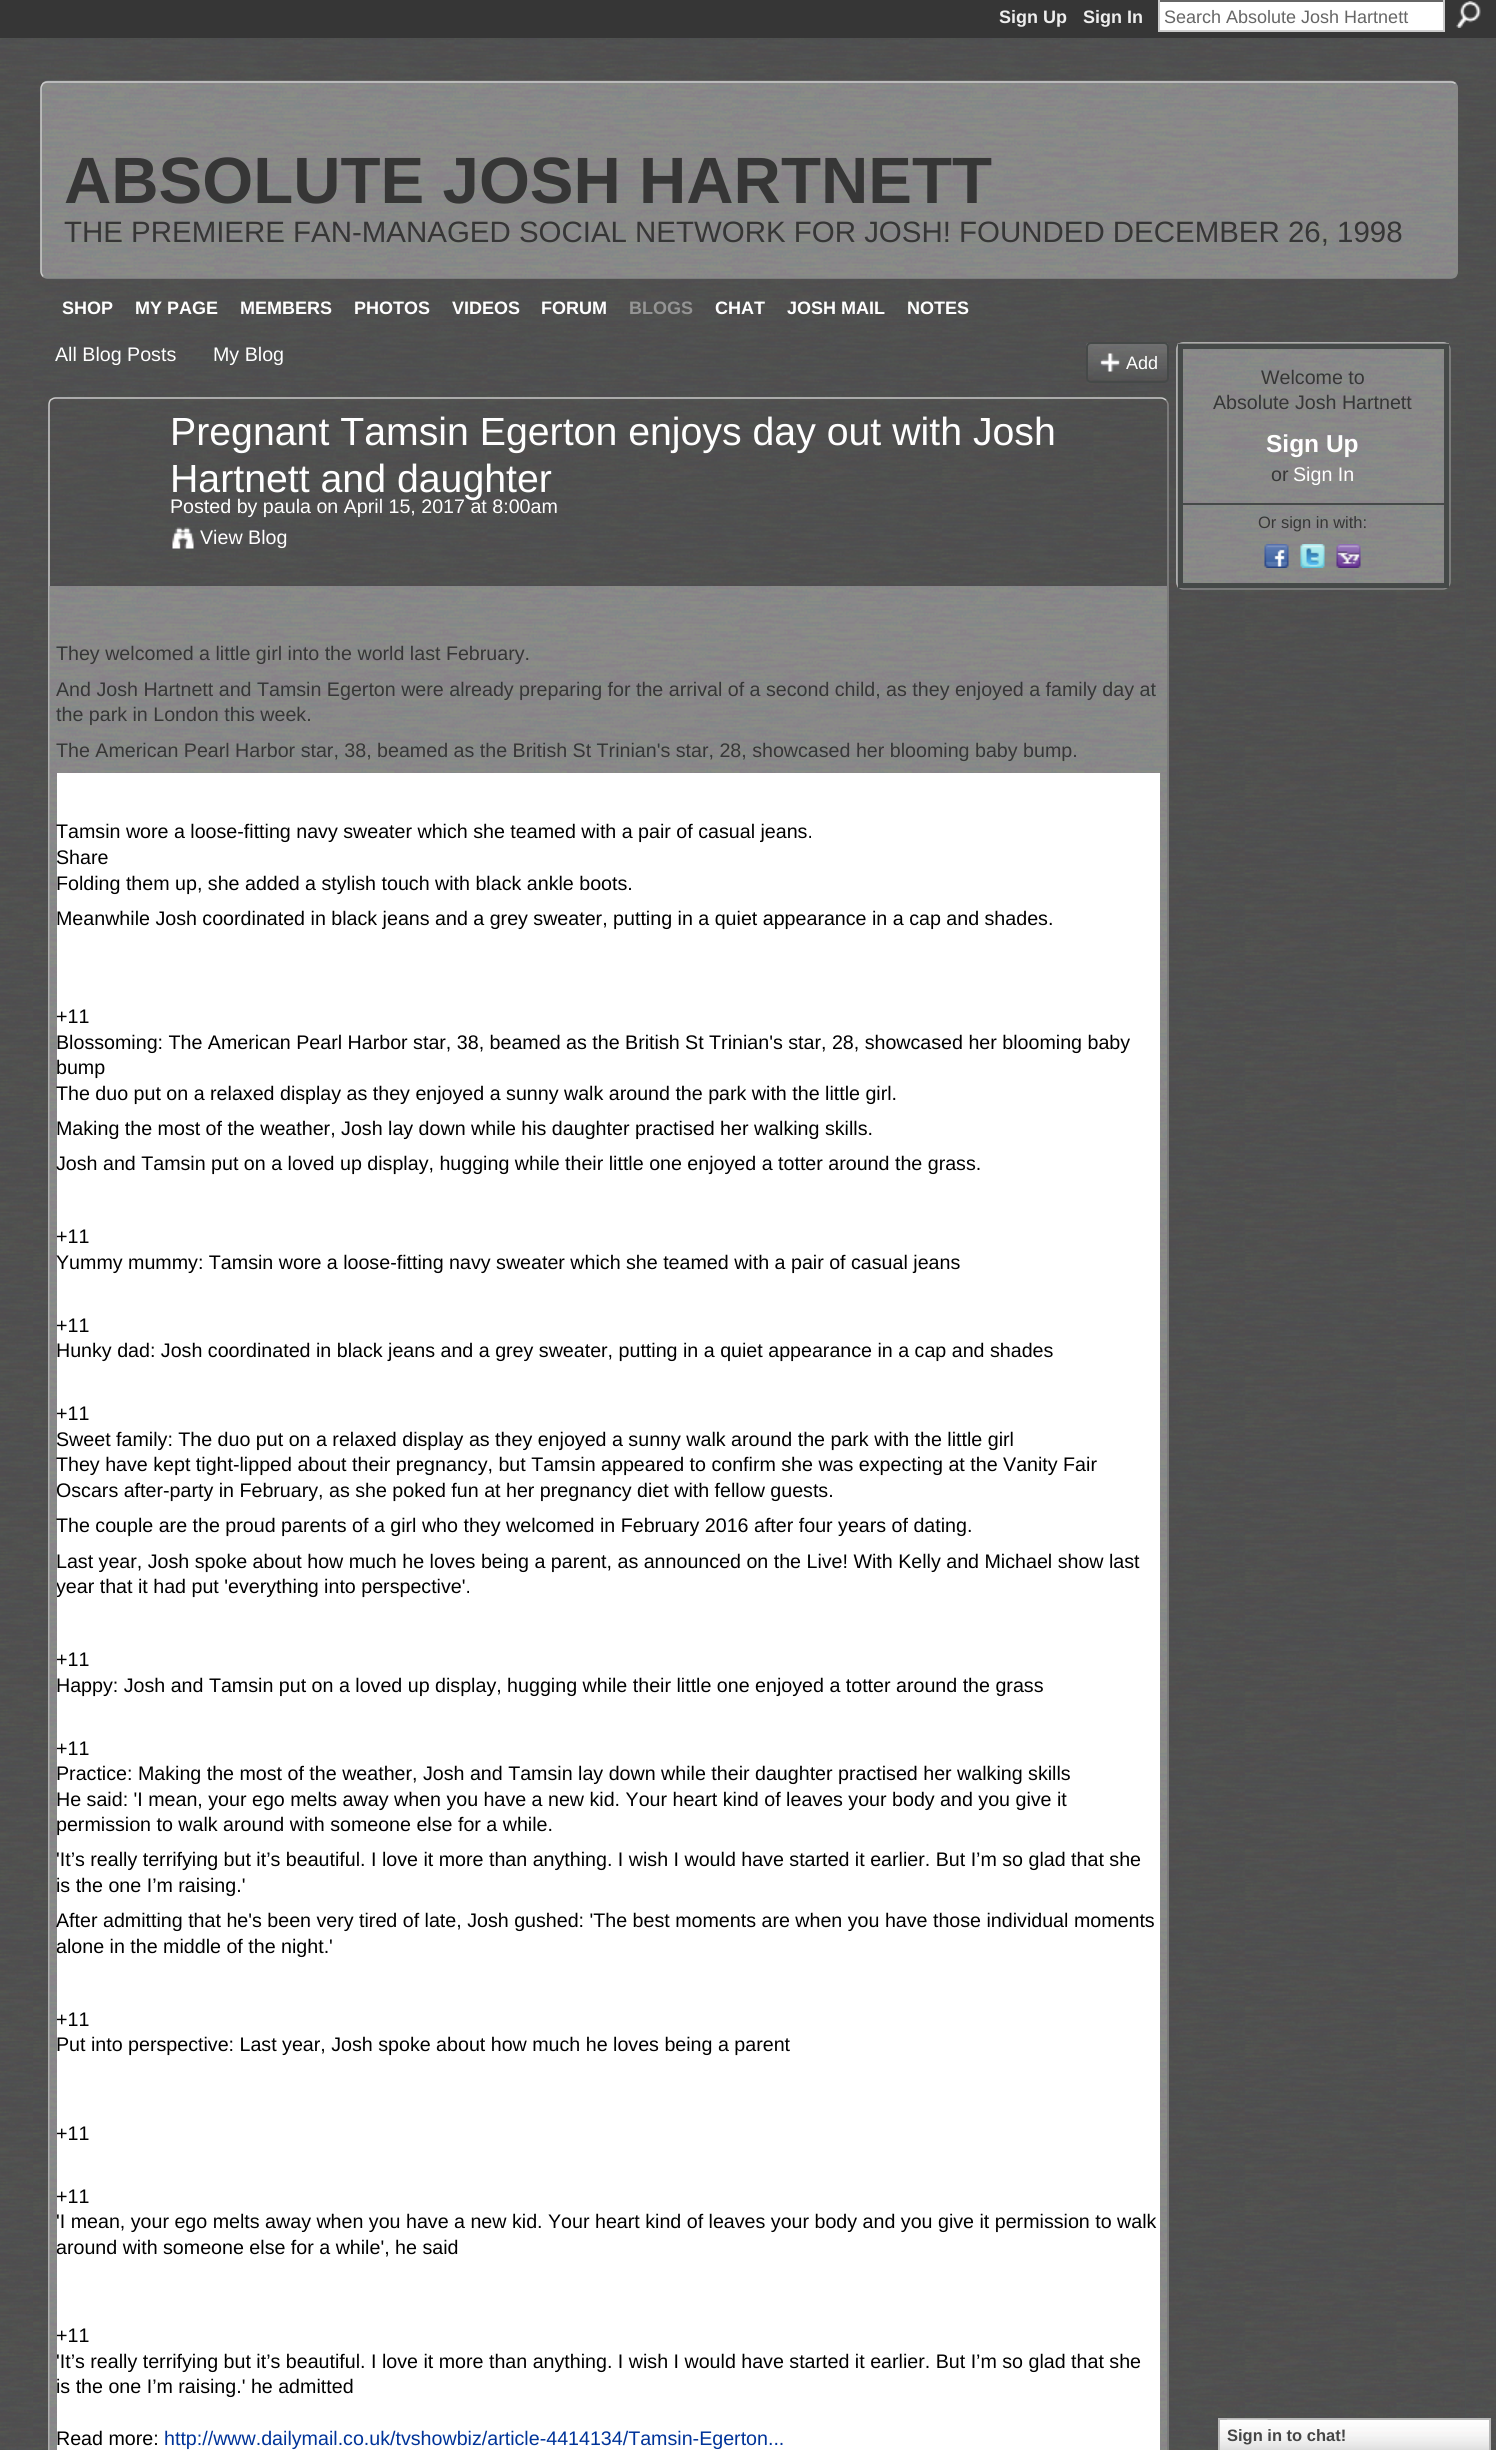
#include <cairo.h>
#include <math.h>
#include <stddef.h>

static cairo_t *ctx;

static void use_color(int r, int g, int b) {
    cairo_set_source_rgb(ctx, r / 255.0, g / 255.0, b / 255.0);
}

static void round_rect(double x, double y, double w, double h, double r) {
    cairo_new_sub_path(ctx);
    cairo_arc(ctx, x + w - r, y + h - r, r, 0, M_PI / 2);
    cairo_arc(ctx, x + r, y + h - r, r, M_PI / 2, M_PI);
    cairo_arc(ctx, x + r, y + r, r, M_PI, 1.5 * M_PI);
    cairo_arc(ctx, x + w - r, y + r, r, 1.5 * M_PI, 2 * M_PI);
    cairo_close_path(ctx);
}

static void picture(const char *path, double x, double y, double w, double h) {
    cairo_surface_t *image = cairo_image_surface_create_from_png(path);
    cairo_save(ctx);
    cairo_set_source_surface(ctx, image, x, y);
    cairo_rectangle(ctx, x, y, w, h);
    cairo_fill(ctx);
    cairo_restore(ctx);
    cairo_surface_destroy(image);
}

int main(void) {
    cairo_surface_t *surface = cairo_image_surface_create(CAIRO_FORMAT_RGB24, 1496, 2450);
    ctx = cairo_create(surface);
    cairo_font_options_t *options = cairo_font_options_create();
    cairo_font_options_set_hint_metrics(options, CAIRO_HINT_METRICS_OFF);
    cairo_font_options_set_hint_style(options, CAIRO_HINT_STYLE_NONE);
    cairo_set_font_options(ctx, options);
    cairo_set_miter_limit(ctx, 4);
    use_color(255, 255, 255);
    cairo_paint(ctx);
    picture("img1.png", 0, 38, 1496, 2412);
    use_color(54, 54, 54);
    cairo_rectangle(ctx, 0, 0, 1496, 38);
    cairo_fill(ctx);
    cairo_select_font_face(ctx, "Liberation Sans", CAIRO_FONT_SLANT_NORMAL, CAIRO_FONT_WEIGHT_BOLD);
    cairo_set_font_size(ctx, 18);
    use_color(238, 238, 238);
    cairo_move_to(ctx, 999, 23);
    cairo_show_text(ctx, "Sign Up");
    cairo_move_to(ctx, 1083, 23);
    cairo_show_text(ctx, "Sign In");
    use_color(255, 255, 255);
    cairo_rectangle(ctx, 1160, 2, 283, 28);
    cairo_fill(ctx);
    use_color(102, 102, 102);
    cairo_rectangle(ctx, 1158, 0, 287, 2);
    cairo_fill(ctx);
    use_color(204, 204, 204);
    cairo_rectangle(ctx, 1443, 0, 2, 32);
    cairo_fill(ctx);
    cairo_rectangle(ctx, 1158, 30, 287, 2);
    cairo_fill(ctx);
    cairo_rectangle(ctx, 1158, 0, 2, 32);
    cairo_fill(ctx);
    cairo_select_font_face(ctx, "Liberation Sans", CAIRO_FONT_SLANT_NORMAL, CAIRO_FONT_WEIGHT_NORMAL);
    use_color(102, 102, 102);
    cairo_move_to(ctx, 1164, 23);
    cairo_show_text(ctx, "Search Absolute Josh Hartnett");
    picture("img2.png", 1456, 1, 25, 27);
    picture("img3.png", 40, 80, 1418, 199);
    cairo_new_path(ctx);
    cairo_move_to(ctx, 1455.5, 83.5);
    cairo_curve_to(ctx, 1456.5, 85, 1457, 86.5, 1457, 88.5);
    cairo_line_to(ctx, 1457, 271.5);
    cairo_curve_to(ctx, 1457, 273.5, 1456.5, 275, 1455.5, 276.5);
    cairo_curve_to(ctx, 1454, 277.5, 1452.5, 278, 1450.5, 278);
    cairo_line_to(ctx, 48, 278);
    cairo_curve_to(ctx, 46, 278, 44.5, 277.5, 43, 276.5);
    use_color(136, 136, 136);
    cairo_set_line_width(ctx, 1.5);
    cairo_stroke(ctx);
    cairo_new_path(ctx);
    cairo_move_to(ctx, 43, 276.5);
    cairo_curve_to(ctx, 42, 275, 41, 273.5, 41, 271.5);
    cairo_line_to(ctx, 41, 88.5);
    cairo_curve_to(ctx, 41, 86.5, 42, 85, 43, 83.5);
    cairo_curve_to(ctx, 44.5, 82.5, 46, 82, 48, 82);
    cairo_line_to(ctx, 1450.5, 82);
    cairo_curve_to(ctx, 1452.5, 82, 1454, 82.5, 1455.5, 83.5);
    use_color(204, 204, 204);
    cairo_stroke(ctx);
    cairo_select_font_face(ctx, "Liberation Sans", CAIRO_FONT_SLANT_NORMAL, CAIRO_FONT_WEIGHT_BOLD);
    cairo_set_font_size(ctx, 65.5);
    use_color(54, 54, 54);
    cairo_move_to(ctx, 64, 203);
    cairo_show_text(ctx, "ABSOLUTE JOSH HARTNETT");
    cairo_select_font_face(ctx, "Liberation Sans", CAIRO_FONT_SLANT_NORMAL, CAIRO_FONT_WEIGHT_NORMAL);
    cairo_set_font_size(ctx, 29.45);
    cairo_move_to(ctx, 64, 242);
    cairo_show_text(ctx, "THE PREMIERE FAN-MANAGED SOCIAL NETWORK FOR JOSH! FOUNDED DECEMBER 26, 1998");
    cairo_select_font_face(ctx, "Liberation Sans", CAIRO_FONT_SLANT_NORMAL, CAIRO_FONT_WEIGHT_BOLD);
    cairo_set_font_size(ctx, 18);
    use_color(255, 255, 255);
    cairo_move_to(ctx, 62, 314);
    cairo_show_text(ctx, "SHOP");
    cairo_move_to(ctx, 135, 314);
    cairo_show_text(ctx, "MY PAGE");
    cairo_move_to(ctx, 240, 314);
    cairo_show_text(ctx, "MEMBERS");
    cairo_move_to(ctx, 354, 314);
    cairo_show_text(ctx, "PHOTOS");
    cairo_move_to(ctx, 452, 314);
    cairo_show_text(ctx, "VIDEOS");
    cairo_move_to(ctx, 541, 314);
    cairo_show_text(ctx, "FORUM");
    use_color(149, 149, 149);
    cairo_move_to(ctx, 629, 314);
    cairo_show_text(ctx, "BLOGS");
    use_color(255, 255, 255);
    cairo_move_to(ctx, 715, 314);
    cairo_show_text(ctx, "CHAT");
    cairo_move_to(ctx, 787, 314);
    cairo_show_text(ctx, "JOSH MAIL");
    cairo_move_to(ctx, 907, 314);
    cairo_show_text(ctx, "NOTES");
    use_color(77, 82, 81);
    cairo_rectangle(ctx, 1465, 327, 1, 2091);
    cairo_fill(ctx);
    picture("img4.png", 33, 327, 1432, 2123);
    cairo_select_font_face(ctx, "Liberation Sans", CAIRO_FONT_SLANT_NORMAL, CAIRO_FONT_WEIGHT_NORMAL);
    cairo_set_font_size(ctx, 19.65);
    use_color(255, 255, 255);
    cairo_move_to(ctx, 55, 361);
    cairo_show_text(ctx, "All Blog Posts");
    cairo_move_to(ctx, 213, 361);
    cairo_show_text(ctx, "My Blog");
    picture("img5.png", 1086, 343, 83, 37);
    round_rect(1087, 343, 81, 39, 4);
    use_color(69, 73, 72);
    cairo_set_line_width(ctx, 2);
    cairo_stroke(ctx);
    picture("img6.png", 1100, 353, 20, 19);
    cairo_set_font_size(ctx, 18);
    use_color(255, 255, 255);
    cairo_move_to(ctx, 1126, 369);
    cairo_show_text(ctx, "Add");
    cairo_new_path(ctx);
    cairo_move_to(ctx, 1166, 400);
    cairo_curve_to(ctx, 1167, 401.5, 1168, 403, 1168, 405);
    cairo_line_to(ctx, 1168, 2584.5);
    cairo_curve_to(ctx, 1168, 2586.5, 1167, 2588, 1166, 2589.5);
    cairo_curve_to(ctx, 1164.5, 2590.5, 1163, 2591, 1161, 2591);
    cairo_line_to(ctx, 55.5, 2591);
    cairo_curve_to(ctx, 53.5, 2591, 52, 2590.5, 50.5, 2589.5);
    use_color(136, 136, 136);
    cairo_set_line_width(ctx, 1.5);
    cairo_stroke(ctx);
    cairo_new_path(ctx);
    cairo_move_to(ctx, 50.5, 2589.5);
    cairo_curve_to(ctx, 49.5, 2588, 49, 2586.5, 49, 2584.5);
    cairo_line_to(ctx, 49, 405);
    cairo_curve_to(ctx, 49, 403, 49.5, 401.5, 50.5, 400);
    cairo_curve_to(ctx, 52, 399, 53.5, 398, 55.5, 398);
    cairo_line_to(ctx, 1161, 398);
    cairo_curve_to(ctx, 1163, 398, 1164.5, 399, 1166, 400);
    use_color(204, 204, 204);
    cairo_stroke(ctx);
    cairo_set_font_size(ctx, 39.25);
    use_color(255, 255, 255);
    cairo_move_to(ctx, 170, 445);
    cairo_show_text(ctx, "Pregnant Tamsin Egerton enjoys day out with Josh");
    cairo_move_to(ctx, 170, 492);
    cairo_show_text(ctx, "Hartnett and daughter");
    cairo_set_font_size(ctx, 19.65);
    cairo_move_to(ctx, 170, 513);
    cairo_show_text(ctx, "Posted by paula on April 15, 2017 at 8:00am");
    picture("img7.png", 172, 527, 22, 22);
    cairo_move_to(ctx, 200, 544);
    cairo_show_text(ctx, "View Blog");
    picture("img8.png", 49, 586, 1118, 1864);
    use_color(54, 54, 54);
    cairo_move_to(ctx, 56, 660);
    cairo_show_text(ctx, "They welcomed a little girl into the world last February.");
    cairo_move_to(ctx, 56, 696);
    cairo_show_text(ctx, "And Josh Hartnett and Tamsin Egerton were already preparing for the arrival of a second child, as they enjoyed a family day at");
    cairo_move_to(ctx, 56, 721);
    cairo_show_text(ctx, "the park in London this week.");
    cairo_move_to(ctx, 56, 757);
    cairo_show_text(ctx, "The American Pearl Harbor star, 38, beamed as the British St Trinian's star, 28, showcased her blooming baby bump.");
    use_color(255, 255, 255);
    cairo_rectangle(ctx, 57, 773, 1103, 1677);
    cairo_fill(ctx);
    use_color(0, 0, 0);
    cairo_move_to(ctx, 56, 838);
    cairo_show_text(ctx, "Tamsin wore a loose-fitting navy sweater which she teamed with a pair of casual jeans.");
    cairo_move_to(ctx, 56, 864);
    cairo_show_text(ctx, "Share");
    cairo_move_to(ctx, 56, 890);
    cairo_show_text(ctx, "Folding them up, she added a stylish touch with black ankle boots.");
    cairo_move_to(ctx, 56, 925);
    cairo_show_text(ctx, "Meanwhile Josh coordinated in black jeans and a grey sweater, putting in a quiet appearance in a cap and shades.");
    cairo_move_to(ctx, 56, 1023);
    cairo_show_text(ctx, "+11");
    cairo_move_to(ctx, 56, 1049);
    cairo_show_text(ctx, "Blossoming: The American Pearl Harbor star, 38, beamed as the British St Trinian's star, 28, showcased her blooming baby");
    cairo_move_to(ctx, 56, 1074);
    cairo_show_text(ctx, "bump");
    cairo_move_to(ctx, 56, 1100);
    cairo_show_text(ctx, "The duo put on a relaxed display as they enjoyed a sunny walk around the park with the little girl.");
    cairo_move_to(ctx, 56, 1135);
    cairo_show_text(ctx, "Making the most of the weather, Josh lay down while his daughter practised her walking skills.");
    cairo_move_to(ctx, 56, 1170);
    cairo_show_text(ctx, "Josh and Tamsin put on a loved up display, hugging while their little one enjoyed a totter around the grass.");
    cairo_move_to(ctx, 56, 1243);
    cairo_show_text(ctx, "+11");
    cairo_move_to(ctx, 56, 1269);
    cairo_show_text(ctx, "Yummy mummy: Tamsin wore a loose-fitting navy sweater which she teamed with a pair of casual jeans");
    cairo_move_to(ctx, 56, 1332);
    cairo_show_text(ctx, "+11");
    cairo_move_to(ctx, 56, 1357);
    cairo_show_text(ctx, "Hunky dad: Josh coordinated in black jeans and a grey sweater, putting in a quiet appearance in a cap and shades");
    cairo_move_to(ctx, 56, 1420);
    cairo_show_text(ctx, "+11");
    cairo_move_to(ctx, 56, 1446);
    cairo_show_text(ctx, "Sweet family: The duo put on a relaxed display as they enjoyed a sunny walk around the park with the little girl");
    cairo_move_to(ctx, 56, 1471);
    cairo_show_text(ctx, "They have kept tight-lipped about their pregnancy, but Tamsin appeared to confirm she was expecting at the Vanity Fair");
    cairo_move_to(ctx, 56, 1497);
    cairo_show_text(ctx, "Oscars after-party in February, as she poked fun at her pregnancy diet with fellow guests.");
    cairo_move_to(ctx, 56, 1532);
    cairo_show_text(ctx, "The couple are the proud parents of a girl who they welcomed in February 2016 after four years of dating.");
    cairo_move_to(ctx, 56, 1568);
    cairo_show_text(ctx, "Last year, Josh spoke about how much he loves being a parent, as announced on the Live! With Kelly and Michael show last");
    cairo_save(ctx);
    cairo_rectangle(ctx, 57, 845, 1103, 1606);
    cairo_clip(ctx);
    cairo_move_to(ctx, 56, 1593);
    cairo_show_text(ctx, "year that it had put 'everything into perspective'.");
    cairo_restore(ctx);
    cairo_move_to(ctx, 56, 1666);
    cairo_show_text(ctx, "+11");
    cairo_move_to(ctx, 56, 1692);
    cairo_show_text(ctx, "Happy: Josh and Tamsin put on a loved up display, hugging while their little one enjoyed a totter around the grass");
    cairo_move_to(ctx, 56, 1755);
    cairo_show_text(ctx, "+11");
    cairo_move_to(ctx, 56, 1780);
    cairo_show_text(ctx, "Practice: Making the most of the weather, Josh and Tamsin lay down while their daughter practised her walking skills");
    cairo_move_to(ctx, 56, 1806);
    cairo_show_text(ctx, "He said: 'I mean, your ego melts away when you have a new kid. Your heart kind of leaves your body and you give it");
    cairo_move_to(ctx, 56, 1831);
    cairo_show_text(ctx, "permission to walk around with someone else for a while.");
    cairo_move_to(ctx, 56, 1866);
    cairo_show_text(ctx, "'It’s really terrifying but it’s beautiful. I love it more than anything. I wish I would have started it earlier. But I’m so glad that she");
    cairo_move_to(ctx, 56, 1892);
    cairo_show_text(ctx, "is the one I’m raising.'");
    cairo_move_to(ctx, 56, 1927);
    cairo_show_text(ctx, "After admitting that he's been very tired of late, Josh gushed: 'The best moments are when you have those individual moments");
    cairo_move_to(ctx, 56, 1953);
    cairo_show_text(ctx, "alone in the middle of the night.'");
    cairo_move_to(ctx, 56, 2026);
    cairo_show_text(ctx, "+11");
    cairo_move_to(ctx, 56, 2051);
    cairo_show_text(ctx, "Put into perspective: Last year, Josh spoke about how much he loves being a parent");
    cairo_move_to(ctx, 56, 2140);
    cairo_show_text(ctx, "+11");
    cairo_move_to(ctx, 56, 2203);
    cairo_show_text(ctx, "+11");
    cairo_move_to(ctx, 56, 2228);
    cairo_show_text(ctx, "'I mean, your ego melts away when you have a new kid. Your heart kind of leaves your body and you give it permission to walk");
    cairo_move_to(ctx, 56, 2254);
    cairo_show_text(ctx, "around with someone else for a while', he said");
    cairo_move_to(ctx, 56, 2342);
    cairo_show_text(ctx, "+11");
    cairo_move_to(ctx, 56, 2368);
    cairo_show_text(ctx, "'It’s really terrifying but it’s beautiful. I love it more than anything. I wish I would have started it earlier. But I’m so glad that she");
    cairo_move_to(ctx, 56, 2393);
    cairo_show_text(ctx, "is the one I’m raising.' he admitted");
    cairo_move_to(ctx, 56, 2445);
    cairo_show_text(ctx, "Read more:");
    use_color(0, 51, 153);
    cairo_move_to(ctx, 164, 2445);
    cairo_show_text(ctx, "http://www.dailymail.co.uk/tvshowbiz/article-4414134/Tamsin-Egerton...");
    cairo_new_path(ctx);
    cairo_move_to(ctx, 1448, 344.5);
    cairo_curve_to(ctx, 1449, 346, 1450, 347.5, 1450, 349.5);
    cairo_line_to(ctx, 1450, 582);
    cairo_curve_to(ctx, 1450, 584, 1449, 585.5, 1448, 587);
    cairo_curve_to(ctx, 1446.5, 588, 1445, 589, 1443, 589);
    cairo_line_to(ctx, 1183.5, 589);
    cairo_curve_to(ctx, 1181.5, 589, 1180, 588, 1178.5, 587);
    use_color(136, 136, 136);
    cairo_stroke(ctx);
    cairo_new_path(ctx);
    cairo_move_to(ctx, 1178.5, 587);
    cairo_curve_to(ctx, 1177.5, 585.5, 1177, 584, 1177, 582);
    cairo_line_to(ctx, 1177, 349.5);
    cairo_curve_to(ctx, 1177, 347.5, 1177.5, 346, 1178.5, 344.5);
    cairo_curve_to(ctx, 1180, 343.5, 1181.5, 343, 1183.5, 343);
    cairo_line_to(ctx, 1443, 343);
    cairo_curve_to(ctx, 1445, 343, 1446.5, 343.5, 1448, 344.5);
    use_color(204, 204, 204);
    cairo_stroke(ctx);
    picture("img9.png", 1177, 343, 272, 245);
    cairo_rectangle(ctx, 1180.5, 346.5, 266, 239);
    use_color(69, 73, 72);
    cairo_set_line_width(ctx, 5);
    cairo_stroke(ctx);
    use_color(54, 54, 54);
    cairo_move_to(ctx, 1261, 384);
    cairo_show_text(ctx, "Welcome to");
    cairo_move_to(ctx, 1213, 409);
    cairo_show_text(ctx, "Absolute Josh Hartnett");
    cairo_select_font_face(ctx, "Liberation Sans", CAIRO_FONT_SLANT_NORMAL, CAIRO_FONT_WEIGHT_BOLD);
    cairo_set_font_size(ctx, 24.5);
    use_color(255, 255, 255);
    cairo_move_to(ctx, 1266, 452);
    cairo_show_text(ctx, "Sign Up");
    cairo_select_font_face(ctx, "Liberation Sans", CAIRO_FONT_SLANT_NORMAL, CAIRO_FONT_WEIGHT_NORMAL);
    cairo_set_font_size(ctx, 19.65);
    use_color(54, 54, 54);
    cairo_move_to(ctx, 1271, 481);
    cairo_show_text(ctx, "or");
    use_color(255, 255, 255);
    cairo_move_to(ctx, 1293, 481);
    cairo_show_text(ctx, "Sign In");
    use_color(69, 73, 72);
    cairo_rectangle(ctx, 1182, 503, 263, 2);
    cairo_fill(ctx);
    cairo_set_font_size(ctx, 16.5);
    use_color(54, 54, 54);
    cairo_move_to(ctx, 1258, 528);
    cairo_show_text(ctx, "Or sign in with:");
    picture("img10.png", 1264, 544, 25, 24);
    picture("img11.png", 1300, 544, 25, 24);
    picture("img12.png", 1336, 544, 25, 24);
    picture("img13.png", 1220, 2420, 269, 30);
    cairo_rectangle(ctx, 1219, 2419, 271, 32);
    use_color(183, 183, 183);
    cairo_set_line_width(ctx, 2);
    cairo_stroke(ctx);
    picture("img14.png", 1227, 2419, 41, 1);
    cairo_select_font_face(ctx, "Liberation Sans", CAIRO_FONT_SLANT_NORMAL, CAIRO_FONT_WEIGHT_BOLD);
    use_color(69, 69, 69);
    cairo_move_to(ctx, 1227, 2441);
    cairo_show_text(ctx, "Sign in to chat!");
    cairo_surface_write_to_png(surface, "result.png");
    cairo_font_options_destroy(options);
    cairo_destroy(ctx);
    cairo_surface_destroy(surface);
    return 0;
}
